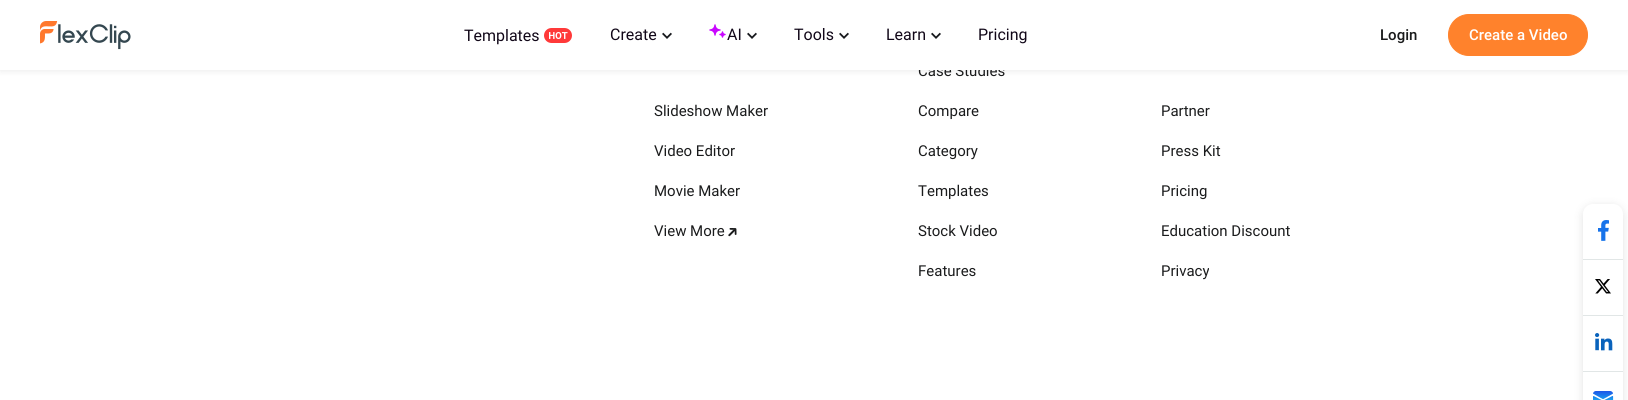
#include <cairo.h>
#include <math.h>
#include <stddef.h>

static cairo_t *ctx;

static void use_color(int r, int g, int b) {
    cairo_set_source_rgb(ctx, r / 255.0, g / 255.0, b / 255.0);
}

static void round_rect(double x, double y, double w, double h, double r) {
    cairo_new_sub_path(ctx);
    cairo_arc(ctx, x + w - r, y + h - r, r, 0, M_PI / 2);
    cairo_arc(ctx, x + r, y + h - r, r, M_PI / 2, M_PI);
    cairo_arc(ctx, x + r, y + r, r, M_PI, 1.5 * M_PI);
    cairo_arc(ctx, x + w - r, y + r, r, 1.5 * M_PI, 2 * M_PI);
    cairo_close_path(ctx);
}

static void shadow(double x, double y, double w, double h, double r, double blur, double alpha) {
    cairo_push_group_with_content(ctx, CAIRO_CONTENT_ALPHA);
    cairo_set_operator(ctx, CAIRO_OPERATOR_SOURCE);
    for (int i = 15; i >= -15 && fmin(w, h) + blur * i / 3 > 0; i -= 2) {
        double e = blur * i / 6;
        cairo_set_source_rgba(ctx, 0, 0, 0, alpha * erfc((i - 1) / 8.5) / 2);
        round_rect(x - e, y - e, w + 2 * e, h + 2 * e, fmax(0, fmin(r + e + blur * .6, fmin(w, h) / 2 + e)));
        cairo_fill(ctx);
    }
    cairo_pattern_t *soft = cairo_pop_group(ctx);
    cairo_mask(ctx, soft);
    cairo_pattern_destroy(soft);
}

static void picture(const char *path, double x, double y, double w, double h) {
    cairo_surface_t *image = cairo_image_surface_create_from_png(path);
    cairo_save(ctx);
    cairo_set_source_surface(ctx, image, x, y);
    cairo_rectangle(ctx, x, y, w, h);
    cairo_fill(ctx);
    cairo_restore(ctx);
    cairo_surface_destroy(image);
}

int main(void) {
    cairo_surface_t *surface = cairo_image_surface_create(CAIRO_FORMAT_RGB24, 1628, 400);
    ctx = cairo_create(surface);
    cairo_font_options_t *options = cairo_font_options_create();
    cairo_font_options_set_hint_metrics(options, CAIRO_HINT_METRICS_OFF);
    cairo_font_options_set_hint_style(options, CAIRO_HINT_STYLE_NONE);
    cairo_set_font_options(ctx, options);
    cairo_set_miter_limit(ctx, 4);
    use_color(255, 255, 255);
    cairo_paint(ctx);
    use_color(0, 0, 0);
    shadow(0, 1, 1628, 70, 0, 3.5, 0.08);
    cairo_select_font_face(ctx, "Roboto", CAIRO_FONT_SLANT_NORMAL, CAIRO_FONT_WEIGHT_NORMAL);
    cairo_set_font_size(ctx, 15);
    use_color(26, 27, 28);
    cairo_move_to(ctx, 918, 76);
    cairo_show_text(ctx, "Case Studies");
    use_color(255, 255, 255);
    cairo_rectangle(ctx, 0, 0, 1628, 70);
    cairo_fill(ctx);
    picture("img1.png", 40, 21, 91, 29);
    cairo_set_font_size(ctx, 16);
    use_color(17, 7, 24);
    cairo_move_to(ctx, 464, 41);
    cairo_show_text(ctx, "Templates");
    picture("img2.png", 544, 28, 28, 15);
    cairo_move_to(ctx, 610, 40);
    cairo_show_text(ctx, "Create");
    picture("img3.png", 662, 32, 10, 7);
    picture("img4.png", 709, 24, 17, 14);
    cairo_move_to(ctx, 727, 40);
    cairo_show_text(ctx, "AI");
    picture("img3.png", 747, 32, 10, 7);
    cairo_move_to(ctx, 794, 40);
    cairo_show_text(ctx, "Tools");
    picture("img3.png", 839, 32, 10, 7);
    cairo_move_to(ctx, 886, 40);
    cairo_show_text(ctx, "Learn");
    picture("img3.png", 931, 32, 10, 7);
    cairo_move_to(ctx, 978, 40);
    cairo_show_text(ctx, "Pricing");
    cairo_select_font_face(ctx, "Roboto Medium", CAIRO_FONT_SLANT_NORMAL, CAIRO_FONT_WEIGHT_NORMAL);
    cairo_set_font_size(ctx, 15);
    use_color(26, 27, 28);
    cairo_move_to(ctx, 1380, 40);
    cairo_show_text(ctx, "Login");
    use_color(255, 130, 44);
    round_rect(1448.5, 14.5, 139, 41, 20.5);
    cairo_fill_preserve(ctx);
    cairo_set_line_width(ctx, 1);
    cairo_stroke(ctx);
    use_color(255, 255, 255);
    cairo_move_to(ctx, 1469, 40);
    cairo_show_text(ctx, "Create a Video");
    cairo_select_font_face(ctx, "Roboto", CAIRO_FONT_SLANT_NORMAL, CAIRO_FONT_WEIGHT_NORMAL);
    use_color(26, 27, 28);
    cairo_move_to(ctx, 654, 116);
    cairo_show_text(ctx, "Slideshow Maker");
    cairo_move_to(ctx, 654, 156);
    cairo_show_text(ctx, "Video Editor");
    cairo_move_to(ctx, 654, 196);
    cairo_show_text(ctx, "Movie Maker");
    cairo_move_to(ctx, 654, 236);
    cairo_show_text(ctx, "View More");
    picture("img5.png", 728, 228, 9, 9);
    cairo_move_to(ctx, 918, 116);
    cairo_show_text(ctx, "Compare");
    cairo_move_to(ctx, 918, 156);
    cairo_show_text(ctx, "Category");
    cairo_move_to(ctx, 918, 196);
    cairo_show_text(ctx, "Templates");
    cairo_move_to(ctx, 918, 236);
    cairo_show_text(ctx, "Stock Video");
    cairo_move_to(ctx, 918, 276);
    cairo_show_text(ctx, "Features");
    cairo_move_to(ctx, 1161, 116);
    cairo_show_text(ctx, "Partner");
    cairo_move_to(ctx, 1161, 156);
    cairo_show_text(ctx, "Press Kit");
    cairo_move_to(ctx, 1161, 196);
    cairo_show_text(ctx, "Pricing");
    cairo_move_to(ctx, 1161, 236);
    cairo_show_text(ctx, "Education Discount");
    cairo_move_to(ctx, 1161, 276);
    cairo_show_text(ctx, "Privacy");
    use_color(0, 0, 0);
    shadow(1583, 206, 40, 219, 10, 5, 0.11);
    use_color(255, 255, 255);
    round_rect(1583, 204, 40, 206, 10);
    cairo_fill(ctx);
    picture("img6.png", 1598, 220, 11, 21);
    use_color(225, 230, 230);
    cairo_rectangle(ctx, 1583, 259, 40, 1);
    cairo_fill(ctx);
    picture("img7.png", 1595, 279, 16, 15);
    cairo_rectangle(ctx, 1583, 315, 40, 1);
    cairo_fill(ctx);
    picture("img8.png", 1595, 333, 18, 18);
    cairo_rectangle(ctx, 1583, 371, 40, 1);
    cairo_fill(ctx);
    picture("img9.png", 1593, 391, 21, 9);
    cairo_surface_write_to_png(surface, "result.png");
    cairo_font_options_destroy(options);
    cairo_destroy(ctx);
    cairo_surface_destroy(surface);
    return 0;
}
